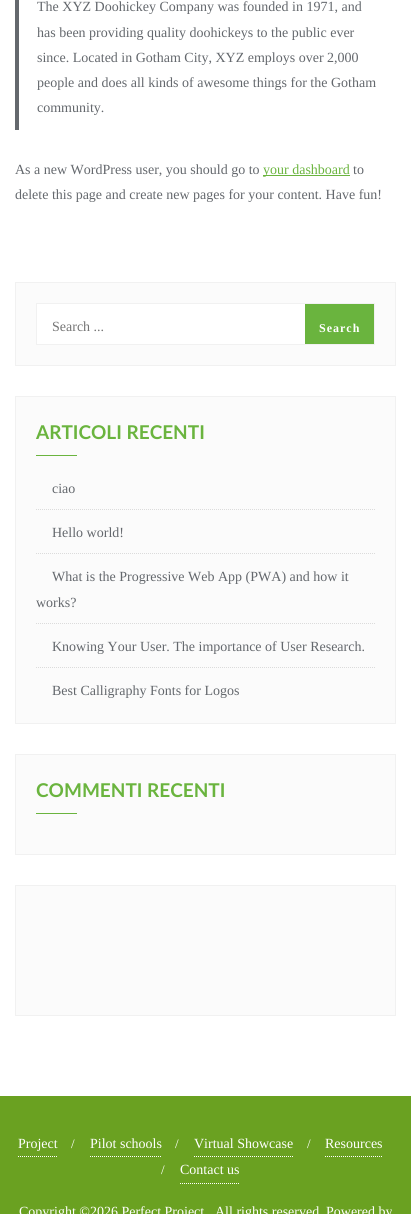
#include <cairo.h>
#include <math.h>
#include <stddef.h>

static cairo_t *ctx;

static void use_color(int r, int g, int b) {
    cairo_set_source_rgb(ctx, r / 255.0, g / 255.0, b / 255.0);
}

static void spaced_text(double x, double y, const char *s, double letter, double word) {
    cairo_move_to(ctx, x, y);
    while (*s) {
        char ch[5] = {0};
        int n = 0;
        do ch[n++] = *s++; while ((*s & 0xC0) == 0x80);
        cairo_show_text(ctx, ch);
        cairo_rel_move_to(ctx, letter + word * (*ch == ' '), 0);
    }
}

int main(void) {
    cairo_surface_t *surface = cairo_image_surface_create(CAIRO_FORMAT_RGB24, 411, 1214);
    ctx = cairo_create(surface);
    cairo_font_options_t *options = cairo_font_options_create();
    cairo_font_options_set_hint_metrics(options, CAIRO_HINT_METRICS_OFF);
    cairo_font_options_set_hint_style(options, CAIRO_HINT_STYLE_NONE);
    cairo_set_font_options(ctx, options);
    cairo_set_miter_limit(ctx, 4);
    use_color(255, 255, 255);
    cairo_paint(ctx);
    use_color(100, 104, 109);
    cairo_rectangle(ctx, 15, 0, 4, 130);
    cairo_fill(ctx);
    cairo_select_font_face(ctx, "Liberation Serif", CAIRO_FONT_SLANT_NORMAL, CAIRO_FONT_WEIGHT_NORMAL);
    cairo_set_font_size(ctx, 14);
    cairo_move_to(ctx, 37, 11);
    cairo_show_text(ctx, "The XYZ Doohickey Company was founded in 1971, and");
    cairo_move_to(ctx, 37, 37);
    cairo_show_text(ctx, "has been providing quality doohickeys to the public ever");
    cairo_move_to(ctx, 37, 62);
    cairo_show_text(ctx, "since. Located in Gotham City, XYZ employs over 2,000");
    cairo_move_to(ctx, 37, 87);
    cairo_show_text(ctx, "people and does all kinds of awesome things for the Gotham");
    cairo_move_to(ctx, 37, 112);
    cairo_show_text(ctx, "community.");
    cairo_move_to(ctx, 15, 174);
    cairo_show_text(ctx, "As a new WordPress user, you should go to");
    use_color(106, 180, 62);
    cairo_rectangle(ctx, 263, 175, 87, 1);
    cairo_fill(ctx);
    cairo_move_to(ctx, 263, 174);
    cairo_show_text(ctx, "your dashboard");
    use_color(100, 104, 109);
    cairo_move_to(ctx, 353, 174);
    cairo_show_text(ctx, "to");
    cairo_move_to(ctx, 15, 199);
    cairo_show_text(ctx, "delete this page and create new pages for your content. Have fun!");
    use_color(251, 251, 251);
    cairo_rectangle(ctx, 15.5, 282.5, 380, 83);
    cairo_fill_preserve(ctx);
    use_color(241, 241, 241);
    cairo_set_line_width(ctx, 1);
    cairo_stroke(ctx);
    use_color(255, 255, 255);
    cairo_rectangle(ctx, 37, 304, 268, 40);
    cairo_fill(ctx);
    cairo_rectangle(ctx, 36.5, 303.5, 338, 41);
    use_color(241, 241, 241);
    cairo_stroke(ctx);
    use_color(117, 117, 117);
    cairo_move_to(ctx, 52, 331);
    cairo_show_text(ctx, "Search ...");
    use_color(106, 180, 62);
    cairo_rectangle(ctx, 305, 304, 69, 40);
    cairo_fill(ctx);
    cairo_select_font_face(ctx, "Liberation Serif", CAIRO_FONT_SLANT_NORMAL, CAIRO_FONT_WEIGHT_BOLD);
    cairo_set_font_size(ctx, 12);
    use_color(255, 255, 255);
    spaced_text(319, 332, "Search", 1, 0);
    use_color(251, 251, 251);
    cairo_rectangle(ctx, 15.5, 396.5, 380, 327);
    cairo_fill_preserve(ctx);
    use_color(241, 241, 241);
    cairo_stroke(ctx);
    cairo_select_font_face(ctx, "Lato", CAIRO_FONT_SLANT_NORMAL, CAIRO_FONT_WEIGHT_BOLD);
    cairo_set_font_size(ctx, 19);
    use_color(106, 180, 62);
    cairo_move_to(ctx, 36, 439);
    cairo_show_text(ctx, "ARTICOLI RECENTI");
    cairo_rectangle(ctx, 36, 455, 41, 1);
    cairo_fill(ctx);
    cairo_new_path(ctx);
    cairo_move_to(ctx, 36, 509.5);
    cairo_line_to(ctx, 375, 509.5);
    use_color(219, 219, 219);
    cairo_set_dash(ctx, (double[]){1, 1}, 2, 0);
    cairo_stroke(ctx);
    cairo_select_font_face(ctx, "Liberation Serif", CAIRO_FONT_SLANT_NORMAL, CAIRO_FONT_WEIGHT_NORMAL);
    cairo_set_font_size(ctx, 14);
    use_color(100, 104, 109);
    cairo_move_to(ctx, 52, 493);
    cairo_show_text(ctx, "ciao");
    cairo_new_path(ctx);
    cairo_move_to(ctx, 36, 553.5);
    cairo_line_to(ctx, 375, 553.5);
    use_color(219, 219, 219);
    cairo_stroke(ctx);
    use_color(100, 104, 109);
    cairo_move_to(ctx, 52, 537);
    cairo_show_text(ctx, "Hello world!");
    cairo_new_path(ctx);
    cairo_move_to(ctx, 36, 623.5);
    cairo_line_to(ctx, 375, 623.5);
    use_color(219, 219, 219);
    cairo_stroke(ctx);
    use_color(100, 104, 109);
    cairo_move_to(ctx, 52, 581);
    cairo_show_text(ctx, "What is the Progressive Web App (PWA) and how it");
    cairo_move_to(ctx, 36, 607);
    cairo_show_text(ctx, "works?");
    cairo_new_path(ctx);
    cairo_move_to(ctx, 36, 667.5);
    cairo_line_to(ctx, 375, 667.5);
    use_color(219, 219, 219);
    cairo_stroke(ctx);
    use_color(100, 104, 109);
    cairo_move_to(ctx, 52, 651);
    cairo_show_text(ctx, "Knowing Your User. The importance of User Research.");
    cairo_move_to(ctx, 52, 695);
    cairo_show_text(ctx, "Best Calligraphy Fonts for Logos");
    use_color(251, 251, 251);
    cairo_rectangle(ctx, 15.5, 754.5, 380, 100);
    cairo_fill_preserve(ctx);
    use_color(241, 241, 241);
    cairo_set_dash(ctx, NULL, 0, 0);
    cairo_stroke(ctx);
    cairo_select_font_face(ctx, "Lato", CAIRO_FONT_SLANT_NORMAL, CAIRO_FONT_WEIGHT_BOLD);
    cairo_set_font_size(ctx, 19);
    use_color(106, 180, 62);
    cairo_move_to(ctx, 36, 797);
    cairo_show_text(ctx, "COMMENTI RECENTI");
    cairo_rectangle(ctx, 36, 813, 41, 1);
    cairo_fill(ctx);
    use_color(251, 251, 251);
    cairo_rectangle(ctx, 15.5, 885.5, 380, 130);
    cairo_fill_preserve(ctx);
    use_color(241, 241, 241);
    cairo_stroke(ctx);
    use_color(106, 161, 33);
    cairo_rectangle(ctx, 0, 1096, 411, 118);
    cairo_fill(ctx);
    cairo_new_path(ctx);
    cairo_move_to(ctx, 18, 1156.5);
    cairo_line_to(ctx, 58, 1156.5);
    use_color(255, 255, 255);
    cairo_set_dash(ctx, (double[]){1, 1}, 2, 0);
    cairo_stroke(ctx);
    cairo_select_font_face(ctx, "Liberation Serif", CAIRO_FONT_SLANT_NORMAL, CAIRO_FONT_WEIGHT_NORMAL);
    cairo_set_font_size(ctx, 14);
    cairo_move_to(ctx, 18, 1148);
    cairo_show_text(ctx, "Project");
    cairo_set_font_size(ctx, 13);
    cairo_move_to(ctx, 71, 1148);
    cairo_show_text(ctx, "/");
    cairo_new_path(ctx);
    cairo_move_to(ctx, 90, 1156.5);
    cairo_line_to(ctx, 162, 1156.5);
    cairo_stroke(ctx);
    cairo_set_font_size(ctx, 14);
    cairo_move_to(ctx, 90, 1148);
    cairo_show_text(ctx, "Pilot schools");
    cairo_set_font_size(ctx, 13);
    cairo_move_to(ctx, 175, 1148);
    cairo_show_text(ctx, "/");
    cairo_new_path(ctx);
    cairo_move_to(ctx, 194, 1156.5);
    cairo_line_to(ctx, 293, 1156.5);
    cairo_stroke(ctx);
    cairo_set_font_size(ctx, 14);
    cairo_move_to(ctx, 194, 1148);
    cairo_show_text(ctx, "Virtual Showcase");
    cairo_set_font_size(ctx, 13);
    cairo_move_to(ctx, 307, 1148);
    cairo_show_text(ctx, "/");
    cairo_new_path(ctx);
    cairo_move_to(ctx, 325, 1156.5);
    cairo_line_to(ctx, 383, 1156.5);
    cairo_stroke(ctx);
    cairo_set_font_size(ctx, 14);
    cairo_move_to(ctx, 325, 1148);
    cairo_show_text(ctx, "Resources");
    cairo_set_font_size(ctx, 13);
    cairo_move_to(ctx, 161, 1174);
    cairo_show_text(ctx, "/");
    cairo_new_path(ctx);
    cairo_move_to(ctx, 180, 1183.5);
    cairo_line_to(ctx, 240, 1183.5);
    cairo_stroke(ctx);
    cairo_set_font_size(ctx, 14);
    cairo_move_to(ctx, 180, 1174);
    cairo_show_text(ctx, "Contact us");
    cairo_move_to(ctx, 19, 1216);
    cairo_show_text(ctx, "Copyright ©2026 Perfect Project");
    cairo_move_to(ctx, 215, 1216);
    cairo_show_text(ctx, "All rights reserved");
    cairo_move_to(ctx, 326, 1216);
    cairo_show_text(ctx, "Powered by");
    cairo_surface_write_to_png(surface, "result.png");
    cairo_font_options_destroy(options);
    cairo_destroy(ctx);
    cairo_surface_destroy(surface);
    return 0;
}
